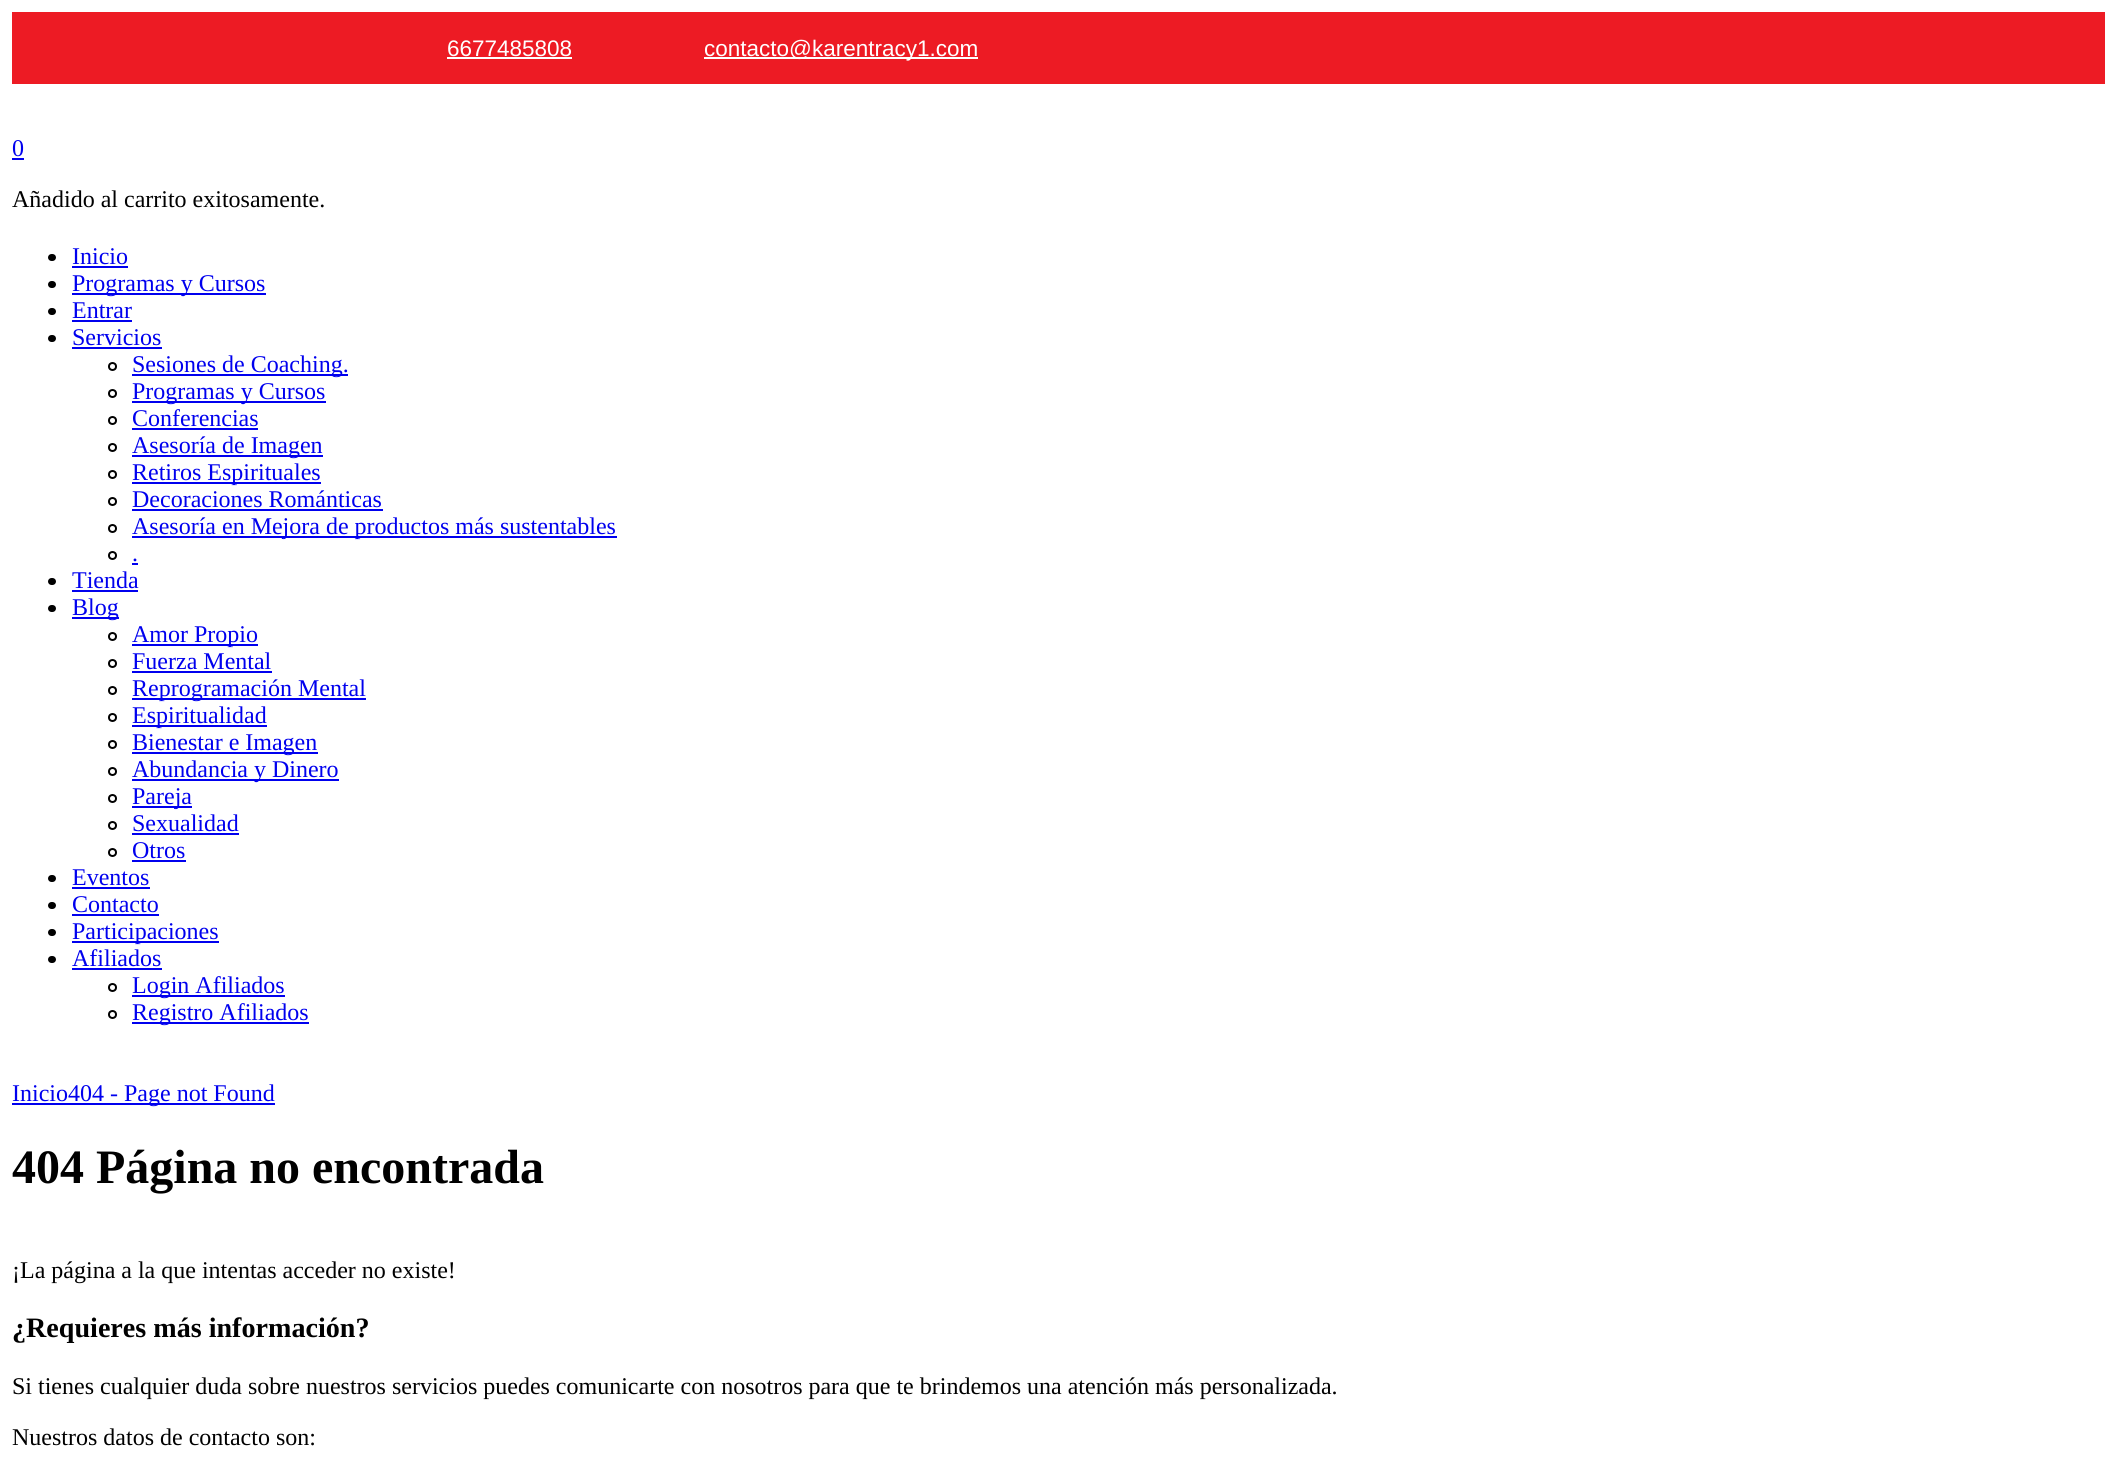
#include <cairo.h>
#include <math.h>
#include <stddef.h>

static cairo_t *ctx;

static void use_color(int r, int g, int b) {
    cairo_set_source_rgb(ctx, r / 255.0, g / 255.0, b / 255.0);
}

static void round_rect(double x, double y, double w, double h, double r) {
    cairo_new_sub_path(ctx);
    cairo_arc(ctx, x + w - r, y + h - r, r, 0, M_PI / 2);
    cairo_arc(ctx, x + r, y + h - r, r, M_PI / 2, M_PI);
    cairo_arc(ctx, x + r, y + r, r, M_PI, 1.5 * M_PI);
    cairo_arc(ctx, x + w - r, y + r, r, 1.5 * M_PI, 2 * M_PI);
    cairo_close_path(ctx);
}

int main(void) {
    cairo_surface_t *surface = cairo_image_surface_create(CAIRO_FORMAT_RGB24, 2116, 1462);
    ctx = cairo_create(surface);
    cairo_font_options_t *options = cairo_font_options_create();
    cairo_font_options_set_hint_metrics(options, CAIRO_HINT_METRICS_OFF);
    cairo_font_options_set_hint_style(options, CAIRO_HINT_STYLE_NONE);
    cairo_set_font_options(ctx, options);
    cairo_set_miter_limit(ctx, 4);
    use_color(255, 255, 255);
    cairo_paint(ctx);
    use_color(237, 27, 36);
    cairo_rectangle(ctx, 12, 12, 2093, 72);
    cairo_fill(ctx);
    cairo_select_font_face(ctx, "Liberation Sans", CAIRO_FONT_SLANT_NORMAL, CAIRO_FONT_WEIGHT_NORMAL);
    cairo_set_font_size(ctx, 22.5);
    use_color(255, 255, 255);
    cairo_move_to(ctx, 447, 56);
    cairo_show_text(ctx, "6677485808");
    cairo_rectangle(ctx, 447, 57, 125, 2);
    cairo_fill(ctx);
    cairo_rectangle(ctx, 704, 57, 274, 2);
    cairo_fill(ctx);
    cairo_move_to(ctx, 704, 56);
    cairo_show_text(ctx, "contacto@karentracy1.com");
    cairo_select_font_face(ctx, "Liberation Serif", CAIRO_FONT_SLANT_NORMAL, CAIRO_FONT_WEIGHT_NORMAL);
    cairo_set_font_size(ctx, 24);
    use_color(0, 0, 238);
    cairo_move_to(ctx, 12, 156);
    cairo_show_text(ctx, "0");
    cairo_rectangle(ctx, 12, 158, 12, 2);
    cairo_fill(ctx);
    use_color(0, 0, 0);
    cairo_move_to(ctx, 12, 207);
    cairo_show_text(ctx, "Añadido al carrito exitosamente.");
    round_rect(48, 254, 8, 7, 3.5);
    cairo_fill(ctx);
    use_color(0, 0, 238);
    cairo_move_to(ctx, 72, 264);
    cairo_show_text(ctx, "Inicio");
    cairo_rectangle(ctx, 72, 266, 56, 2);
    cairo_fill(ctx);
    use_color(0, 0, 0);
    round_rect(48, 281, 8, 7, 3.5);
    cairo_fill(ctx);
    use_color(0, 0, 238);
    cairo_rectangle(ctx, 72, 293, 194, 2);
    cairo_fill(ctx);
    cairo_move_to(ctx, 72, 291);
    cairo_show_text(ctx, "Programas y Cursos");
    use_color(0, 0, 0);
    round_rect(48, 308, 8, 7, 3.5);
    cairo_fill(ctx);
    use_color(0, 0, 238);
    cairo_move_to(ctx, 72, 318);
    cairo_show_text(ctx, "Entrar");
    cairo_rectangle(ctx, 72, 320, 60, 2);
    cairo_fill(ctx);
    use_color(0, 0, 0);
    round_rect(48, 335, 8, 7, 3.5);
    cairo_fill(ctx);
    use_color(0, 0, 238);
    cairo_move_to(ctx, 72, 345);
    cairo_show_text(ctx, "Servicios");
    cairo_rectangle(ctx, 72, 347, 90, 2);
    cairo_fill(ctx);
    cairo_arc(ctx, 112.5, 366.5, 3.5, 0, 2 * M_PI);
    use_color(0, 0, 0);
    cairo_stroke(ctx);
    use_color(0, 0, 238);
    cairo_rectangle(ctx, 132, 374, 216, 2);
    cairo_fill(ctx);
    cairo_move_to(ctx, 132, 372);
    cairo_show_text(ctx, "Sesiones de Coaching.");
    cairo_new_path(ctx);
    cairo_arc(ctx, 112.5, 393.5, 3.5, 0, 2 * M_PI);
    use_color(0, 0, 0);
    cairo_stroke(ctx);
    use_color(0, 0, 238);
    cairo_rectangle(ctx, 132, 401, 194, 2);
    cairo_fill(ctx);
    cairo_move_to(ctx, 132, 399);
    cairo_show_text(ctx, "Programas y Cursos");
    cairo_new_path(ctx);
    cairo_arc(ctx, 112.5, 420.5, 3.5, 0, 2 * M_PI);
    use_color(0, 0, 0);
    cairo_stroke(ctx);
    use_color(0, 0, 238);
    cairo_move_to(ctx, 132, 426);
    cairo_show_text(ctx, "Conferencias");
    cairo_rectangle(ctx, 132, 428, 126, 2);
    cairo_fill(ctx);
    cairo_arc(ctx, 112.5, 447.5, 3.5, 0, 2 * M_PI);
    use_color(0, 0, 0);
    cairo_stroke(ctx);
    use_color(0, 0, 238);
    cairo_rectangle(ctx, 132, 455, 191, 2);
    cairo_fill(ctx);
    cairo_move_to(ctx, 132, 453);
    cairo_show_text(ctx, "Asesoría de Imagen");
    cairo_new_path(ctx);
    cairo_arc(ctx, 112.5, 474.5, 3.5, 0, 2 * M_PI);
    use_color(0, 0, 0);
    cairo_stroke(ctx);
    use_color(0, 0, 238);
    cairo_rectangle(ctx, 132, 482, 189, 2);
    cairo_fill(ctx);
    cairo_move_to(ctx, 132, 480);
    cairo_show_text(ctx, "Retiros Espirituales");
    cairo_new_path(ctx);
    cairo_arc(ctx, 112.5, 501.5, 3.5, 0, 2 * M_PI);
    use_color(0, 0, 0);
    cairo_stroke(ctx);
    use_color(0, 0, 238);
    cairo_move_to(ctx, 132, 507);
    cairo_show_text(ctx, "Decoraciones Románticas");
    cairo_rectangle(ctx, 132, 509, 251, 2);
    cairo_fill(ctx);
    cairo_arc(ctx, 112.5, 528.5, 3.5, 0, 2 * M_PI);
    use_color(0, 0, 0);
    cairo_stroke(ctx);
    use_color(0, 0, 238);
    cairo_rectangle(ctx, 132, 536, 485, 2);
    cairo_fill(ctx);
    cairo_move_to(ctx, 132, 534);
    cairo_show_text(ctx, "Asesoría en Mejora de productos más sustentables");
    cairo_new_path(ctx);
    cairo_arc(ctx, 112.5, 555.5, 3.5, 0, 2 * M_PI);
    use_color(0, 0, 0);
    cairo_stroke(ctx);
    use_color(0, 0, 238);
    cairo_move_to(ctx, 132, 561);
    cairo_show_text(ctx, ".");
    cairo_rectangle(ctx, 132, 563, 6, 2);
    cairo_fill(ctx);
    use_color(0, 0, 0);
    round_rect(48, 578, 8, 7, 3.5);
    cairo_fill(ctx);
    use_color(0, 0, 238);
    cairo_move_to(ctx, 72, 588);
    cairo_show_text(ctx, "Tienda");
    cairo_rectangle(ctx, 72, 590, 66, 2);
    cairo_fill(ctx);
    use_color(0, 0, 0);
    round_rect(48, 605, 8, 7, 3.5);
    cairo_fill(ctx);
    use_color(0, 0, 238);
    cairo_rectangle(ctx, 72, 617, 47, 2);
    cairo_fill(ctx);
    cairo_move_to(ctx, 72, 615);
    cairo_show_text(ctx, "Blog");
    cairo_new_path(ctx);
    cairo_arc(ctx, 112.5, 636.5, 3.5, 0, 2 * M_PI);
    use_color(0, 0, 0);
    cairo_stroke(ctx);
    use_color(0, 0, 238);
    cairo_rectangle(ctx, 132, 644, 126, 2);
    cairo_fill(ctx);
    cairo_move_to(ctx, 132, 642);
    cairo_show_text(ctx, "Amor Propio");
    cairo_new_path(ctx);
    cairo_arc(ctx, 112.5, 663.5, 3.5, 0, 2 * M_PI);
    use_color(0, 0, 0);
    cairo_stroke(ctx);
    use_color(0, 0, 238);
    cairo_move_to(ctx, 132, 669);
    cairo_show_text(ctx, "Fuerza Mental");
    cairo_rectangle(ctx, 132, 671, 140, 2);
    cairo_fill(ctx);
    cairo_arc(ctx, 112.5, 690.5, 3.5, 0, 2 * M_PI);
    use_color(0, 0, 0);
    cairo_stroke(ctx);
    use_color(0, 0, 238);
    cairo_rectangle(ctx, 132, 698, 234, 2);
    cairo_fill(ctx);
    cairo_move_to(ctx, 132, 696);
    cairo_show_text(ctx, "Reprogramación Mental");
    cairo_new_path(ctx);
    cairo_arc(ctx, 112.5, 717.5, 3.5, 0, 2 * M_PI);
    use_color(0, 0, 0);
    cairo_stroke(ctx);
    use_color(0, 0, 238);
    cairo_rectangle(ctx, 132, 725, 135, 2);
    cairo_fill(ctx);
    cairo_move_to(ctx, 132, 723);
    cairo_show_text(ctx, "Espiritualidad");
    cairo_new_path(ctx);
    cairo_arc(ctx, 112.5, 744.5, 3.5, 0, 2 * M_PI);
    use_color(0, 0, 0);
    cairo_stroke(ctx);
    use_color(0, 0, 238);
    cairo_rectangle(ctx, 132, 752, 186, 2);
    cairo_fill(ctx);
    cairo_move_to(ctx, 132, 750);
    cairo_show_text(ctx, "Bienestar e Imagen");
    cairo_new_path(ctx);
    cairo_arc(ctx, 112.5, 771.5, 3.5, 0, 2 * M_PI);
    use_color(0, 0, 0);
    cairo_stroke(ctx);
    use_color(0, 0, 238);
    cairo_rectangle(ctx, 132, 779, 207, 2);
    cairo_fill(ctx);
    cairo_move_to(ctx, 132, 777);
    cairo_show_text(ctx, "Abundancia y Dinero");
    cairo_new_path(ctx);
    cairo_arc(ctx, 112.5, 798.5, 3.5, 0, 2 * M_PI);
    use_color(0, 0, 0);
    cairo_stroke(ctx);
    use_color(0, 0, 238);
    cairo_rectangle(ctx, 132, 806, 60, 2);
    cairo_fill(ctx);
    cairo_move_to(ctx, 132, 804);
    cairo_show_text(ctx, "Pareja");
    cairo_new_path(ctx);
    cairo_arc(ctx, 112.5, 825.5, 3.5, 0, 2 * M_PI);
    use_color(0, 0, 0);
    cairo_stroke(ctx);
    use_color(0, 0, 238);
    cairo_move_to(ctx, 132, 831);
    cairo_show_text(ctx, "Sexualidad");
    cairo_rectangle(ctx, 132, 833, 107, 2);
    cairo_fill(ctx);
    cairo_arc(ctx, 112.5, 852.5, 3.5, 0, 2 * M_PI);
    use_color(0, 0, 0);
    cairo_stroke(ctx);
    use_color(0, 0, 238);
    cairo_move_to(ctx, 132, 858);
    cairo_show_text(ctx, "Otros");
    cairo_rectangle(ctx, 132, 860, 54, 2);
    cairo_fill(ctx);
    use_color(0, 0, 0);
    round_rect(48, 875, 8, 7, 3.5);
    cairo_fill(ctx);
    use_color(0, 0, 238);
    cairo_move_to(ctx, 72, 885);
    cairo_show_text(ctx, "Eventos");
    cairo_rectangle(ctx, 72, 887, 78, 2);
    cairo_fill(ctx);
    use_color(0, 0, 0);
    round_rect(48, 902, 8, 7, 3.5);
    cairo_fill(ctx);
    use_color(0, 0, 238);
    cairo_move_to(ctx, 72, 912);
    cairo_show_text(ctx, "Contacto");
    cairo_rectangle(ctx, 72, 914, 87, 2);
    cairo_fill(ctx);
    use_color(0, 0, 0);
    round_rect(48, 929, 8, 7, 3.5);
    cairo_fill(ctx);
    use_color(0, 0, 238);
    cairo_rectangle(ctx, 72, 941, 147, 2);
    cairo_fill(ctx);
    cairo_move_to(ctx, 72, 939);
    cairo_show_text(ctx, "Participaciones");
    use_color(0, 0, 0);
    round_rect(48, 956, 8, 7, 3.5);
    cairo_fill(ctx);
    use_color(0, 0, 238);
    cairo_move_to(ctx, 72, 966);
    cairo_show_text(ctx, "Afiliados");
    cairo_rectangle(ctx, 72, 968, 90, 2);
    cairo_fill(ctx);
    cairo_arc(ctx, 112.5, 987.5, 3.5, 0, 2 * M_PI);
    use_color(0, 0, 0);
    cairo_stroke(ctx);
    use_color(0, 0, 238);
    cairo_rectangle(ctx, 132, 995, 153, 2);
    cairo_fill(ctx);
    cairo_move_to(ctx, 132, 993);
    cairo_show_text(ctx, "Login Afiliados");
    cairo_new_path(ctx);
    cairo_arc(ctx, 112.5, 1014.5, 3.5, 0, 2 * M_PI);
    use_color(0, 0, 0);
    cairo_stroke(ctx);
    use_color(0, 0, 238);
    cairo_rectangle(ctx, 132, 1022, 177, 2);
    cairo_fill(ctx);
    cairo_move_to(ctx, 132, 1020);
    cairo_show_text(ctx, "Registro Afiliados");
    cairo_rectangle(ctx, 12, 1103, 263, 2);
    cairo_fill(ctx);
    cairo_move_to(ctx, 12, 1101);
    cairo_show_text(ctx, "Inicio404 - Page not Found");
    cairo_select_font_face(ctx, "Liberation Serif", CAIRO_FONT_SLANT_NORMAL, CAIRO_FONT_WEIGHT_BOLD);
    cairo_set_font_size(ctx, 48);
    use_color(0, 0, 0);
    cairo_move_to(ctx, 12, 1183);
    cairo_show_text(ctx, "404 Página no encontrada");
    cairo_select_font_face(ctx, "Liberation Serif", CAIRO_FONT_SLANT_NORMAL, CAIRO_FONT_WEIGHT_NORMAL);
    cairo_set_font_size(ctx, 24);
    cairo_move_to(ctx, 12, 1278);
    cairo_show_text(ctx, "¡La página a la que intentas acceder no existe!");
    cairo_select_font_face(ctx, "Liberation Serif", CAIRO_FONT_SLANT_NORMAL, CAIRO_FONT_WEIGHT_BOLD);
    cairo_set_font_size(ctx, 28.1);
    cairo_move_to(ctx, 12, 1337);
    cairo_show_text(ctx, "¿Requieres más información?");
    cairo_select_font_face(ctx, "Liberation Serif", CAIRO_FONT_SLANT_NORMAL, CAIRO_FONT_WEIGHT_NORMAL);
    cairo_set_font_size(ctx, 24);
    cairo_move_to(ctx, 12, 1394);
    cairo_show_text(ctx, "Si tienes cualquier duda sobre nuestros servicios puedes comunicarte con nosotros para que te brindemos una atención más personalizada.");
    cairo_move_to(ctx, 12, 1445);
    cairo_show_text(ctx, "Nuestros datos de contacto son:");
    cairo_surface_write_to_png(surface, "result.png");
    cairo_font_options_destroy(options);
    cairo_destroy(ctx);
    cairo_surface_destroy(surface);
    return 0;
}
